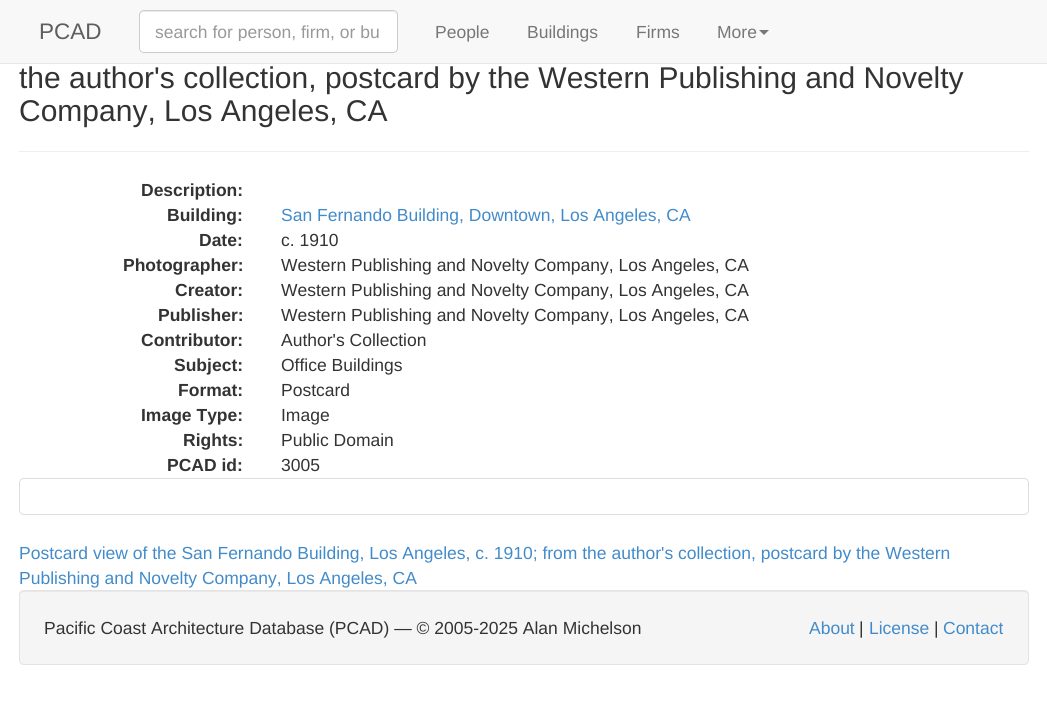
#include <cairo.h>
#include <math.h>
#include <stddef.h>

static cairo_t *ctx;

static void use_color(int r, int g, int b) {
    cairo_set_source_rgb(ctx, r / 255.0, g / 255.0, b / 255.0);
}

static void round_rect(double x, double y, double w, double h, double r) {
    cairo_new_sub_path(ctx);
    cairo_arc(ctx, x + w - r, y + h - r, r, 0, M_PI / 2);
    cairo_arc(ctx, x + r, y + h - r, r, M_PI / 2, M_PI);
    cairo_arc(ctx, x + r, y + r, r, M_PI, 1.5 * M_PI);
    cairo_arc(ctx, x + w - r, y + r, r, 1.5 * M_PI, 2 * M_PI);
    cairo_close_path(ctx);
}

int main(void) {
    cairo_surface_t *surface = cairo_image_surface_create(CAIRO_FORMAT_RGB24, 1047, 723);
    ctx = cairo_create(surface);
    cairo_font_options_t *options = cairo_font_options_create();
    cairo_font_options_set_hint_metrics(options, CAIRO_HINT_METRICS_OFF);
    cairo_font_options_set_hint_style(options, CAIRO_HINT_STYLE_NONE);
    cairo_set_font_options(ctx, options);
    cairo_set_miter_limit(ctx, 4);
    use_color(255, 255, 255);
    cairo_paint(ctx);
    use_color(248, 248, 248);
    cairo_rectangle(ctx, 0, 0, 1047, 63);
    cairo_fill(ctx);
    use_color(231, 231, 231);
    cairo_rectangle(ctx, 0, 63, 1047, 1);
    cairo_fill(ctx);
    cairo_select_font_face(ctx, "Liberation Sans", CAIRO_FONT_SLANT_NORMAL, CAIRO_FONT_WEIGHT_NORMAL);
    cairo_set_font_size(ctx, 22.5);
    use_color(94, 94, 94);
    cairo_move_to(ctx, 39, 39);
    cairo_show_text(ctx, "PCAD");
    use_color(255, 255, 255);
    round_rect(139, 10, 259, 43, 5);
    cairo_fill(ctx);
    use_color(236, 236, 236);
    cairo_new_path(ctx);
    cairo_move_to(ctx, 144, 12);
    cairo_line_to(ctx, 392, 12);
    cairo_curve_to(ctx, 395, 12, 396, 14, 396, 16);
    cairo_line_to(ctx, 396, 15);
    cairo_curve_to(ctx, 396, 13, 394, 11, 392, 11);
    cairo_line_to(ctx, 144, 11);
    cairo_curve_to(ctx, 142, 11, 140, 13, 140, 15);
    cairo_line_to(ctx, 140, 16);
    cairo_curve_to(ctx, 140, 14, 142, 12, 144, 12);
    cairo_close_path(ctx);
    cairo_fill(ctx);
    round_rect(139.5, 10.5, 258, 42, 4.5);
    use_color(204, 204, 204);
    cairo_set_line_width(ctx, 1);
    cairo_stroke(ctx);
    cairo_save(ctx);
    cairo_rectangle(ctx, 155, 21, 226, 20);
    cairo_clip(ctx);
    cairo_set_font_size(ctx, 17.5);
    use_color(153, 153, 153);
    cairo_move_to(ctx, 155, 38);
    cairo_show_text(ctx, "search for person, firm, or bu");
    cairo_restore(ctx);
    cairo_set_font_size(ctx, 17.5);
    use_color(119, 119, 119);
    cairo_move_to(ctx, 435, 38);
    cairo_show_text(ctx, "People");
    cairo_move_to(ctx, 527, 38);
    cairo_show_text(ctx, "Buildings");
    cairo_move_to(ctx, 636, 38);
    cairo_show_text(ctx, "Firms");
    cairo_move_to(ctx, 717, 38);
    cairo_show_text(ctx, "More");
    cairo_new_path(ctx);
    cairo_move_to(ctx, 759, 30);
    cairo_line_to(ctx, 769, 30);
    cairo_line_to(ctx, 764, 35);
    cairo_close_path(ctx);
    cairo_fill(ctx);
    use_color(238, 238, 238);
    cairo_rectangle(ctx, 19, 151, 1010, 1);
    cairo_fill(ctx);
    cairo_set_font_size(ctx, 30);
    use_color(51, 51, 51);
    cairo_move_to(ctx, 19, 88);
    cairo_show_text(ctx, "the author's collection, postcard by the Western Publishing and Novelty");
    cairo_move_to(ctx, 19, 121);
    cairo_show_text(ctx, "Company, Los Angeles, CA");
    cairo_select_font_face(ctx, "Liberation Sans", CAIRO_FONT_SLANT_NORMAL, CAIRO_FONT_WEIGHT_BOLD);
    cairo_set_font_size(ctx, 17.5);
    cairo_move_to(ctx, 141, 196);
    cairo_show_text(ctx, "Description:");
    cairo_move_to(ctx, 167, 221);
    cairo_show_text(ctx, "Building:");
    cairo_select_font_face(ctx, "Liberation Sans", CAIRO_FONT_SLANT_NORMAL, CAIRO_FONT_WEIGHT_NORMAL);
    use_color(66, 139, 202);
    cairo_move_to(ctx, 281, 221);
    cairo_show_text(ctx, "San Fernando Building, Downtown, Los Angeles, CA");
    cairo_select_font_face(ctx, "Liberation Sans", CAIRO_FONT_SLANT_NORMAL, CAIRO_FONT_WEIGHT_BOLD);
    use_color(51, 51, 51);
    cairo_move_to(ctx, 199, 246);
    cairo_show_text(ctx, "Date:");
    cairo_select_font_face(ctx, "Liberation Sans", CAIRO_FONT_SLANT_NORMAL, CAIRO_FONT_WEIGHT_NORMAL);
    cairo_move_to(ctx, 281, 246);
    cairo_show_text(ctx, "c. 1910");
    cairo_select_font_face(ctx, "Liberation Sans", CAIRO_FONT_SLANT_NORMAL, CAIRO_FONT_WEIGHT_BOLD);
    cairo_move_to(ctx, 123, 271);
    cairo_show_text(ctx, "Photographer:");
    cairo_select_font_face(ctx, "Liberation Sans", CAIRO_FONT_SLANT_NORMAL, CAIRO_FONT_WEIGHT_NORMAL);
    cairo_move_to(ctx, 281, 271);
    cairo_show_text(ctx, "Western Publishing and Novelty Company, Los Angeles, CA");
    cairo_select_font_face(ctx, "Liberation Sans", CAIRO_FONT_SLANT_NORMAL, CAIRO_FONT_WEIGHT_BOLD);
    cairo_move_to(ctx, 175, 296);
    cairo_show_text(ctx, "Creator:");
    cairo_select_font_face(ctx, "Liberation Sans", CAIRO_FONT_SLANT_NORMAL, CAIRO_FONT_WEIGHT_NORMAL);
    cairo_move_to(ctx, 281, 296);
    cairo_show_text(ctx, "Western Publishing and Novelty Company, Los Angeles, CA");
    cairo_select_font_face(ctx, "Liberation Sans", CAIRO_FONT_SLANT_NORMAL, CAIRO_FONT_WEIGHT_BOLD);
    cairo_move_to(ctx, 158, 321);
    cairo_show_text(ctx, "Publisher:");
    cairo_select_font_face(ctx, "Liberation Sans", CAIRO_FONT_SLANT_NORMAL, CAIRO_FONT_WEIGHT_NORMAL);
    cairo_move_to(ctx, 281, 321);
    cairo_show_text(ctx, "Western Publishing and Novelty Company, Los Angeles, CA");
    cairo_select_font_face(ctx, "Liberation Sans", CAIRO_FONT_SLANT_NORMAL, CAIRO_FONT_WEIGHT_BOLD);
    cairo_move_to(ctx, 141, 346);
    cairo_show_text(ctx, "Contributor:");
    cairo_select_font_face(ctx, "Liberation Sans", CAIRO_FONT_SLANT_NORMAL, CAIRO_FONT_WEIGHT_NORMAL);
    cairo_move_to(ctx, 281, 346);
    cairo_show_text(ctx, "Author's Collection");
    cairo_select_font_face(ctx, "Liberation Sans", CAIRO_FONT_SLANT_NORMAL, CAIRO_FONT_WEIGHT_BOLD);
    cairo_move_to(ctx, 174, 371);
    cairo_show_text(ctx, "Subject:");
    cairo_select_font_face(ctx, "Liberation Sans", CAIRO_FONT_SLANT_NORMAL, CAIRO_FONT_WEIGHT_NORMAL);
    cairo_move_to(ctx, 281, 371);
    cairo_show_text(ctx, "Office Buildings");
    cairo_select_font_face(ctx, "Liberation Sans", CAIRO_FONT_SLANT_NORMAL, CAIRO_FONT_WEIGHT_BOLD);
    cairo_move_to(ctx, 178, 396);
    cairo_show_text(ctx, "Format:");
    cairo_select_font_face(ctx, "Liberation Sans", CAIRO_FONT_SLANT_NORMAL, CAIRO_FONT_WEIGHT_NORMAL);
    cairo_move_to(ctx, 281, 396);
    cairo_show_text(ctx, "Postcard");
    cairo_select_font_face(ctx, "Liberation Sans", CAIRO_FONT_SLANT_NORMAL, CAIRO_FONT_WEIGHT_BOLD);
    cairo_move_to(ctx, 141, 421);
    cairo_show_text(ctx, "Image Type:");
    cairo_select_font_face(ctx, "Liberation Sans", CAIRO_FONT_SLANT_NORMAL, CAIRO_FONT_WEIGHT_NORMAL);
    cairo_move_to(ctx, 281, 421);
    cairo_show_text(ctx, "Image");
    cairo_select_font_face(ctx, "Liberation Sans", CAIRO_FONT_SLANT_NORMAL, CAIRO_FONT_WEIGHT_BOLD);
    cairo_move_to(ctx, 183, 446);
    cairo_show_text(ctx, "Rights:");
    cairo_select_font_face(ctx, "Liberation Sans", CAIRO_FONT_SLANT_NORMAL, CAIRO_FONT_WEIGHT_NORMAL);
    cairo_move_to(ctx, 281, 446);
    cairo_show_text(ctx, "Public Domain");
    cairo_select_font_face(ctx, "Liberation Sans", CAIRO_FONT_SLANT_NORMAL, CAIRO_FONT_WEIGHT_BOLD);
    cairo_move_to(ctx, 167, 471);
    cairo_show_text(ctx, "PCAD id:");
    cairo_select_font_face(ctx, "Liberation Sans", CAIRO_FONT_SLANT_NORMAL, CAIRO_FONT_WEIGHT_NORMAL);
    cairo_move_to(ctx, 281, 471);
    cairo_show_text(ctx, "3005");
    round_rect(19.5, 478.5, 1009, 36, 4.5);
    use_color(221, 221, 221);
    cairo_stroke(ctx);
    use_color(66, 139, 202);
    cairo_move_to(ctx, 19, 559);
    cairo_show_text(ctx, "Postcard view of the San Fernando Building, Los Angeles, c. 1910; from the author's collection, postcard by the Western");
    cairo_move_to(ctx, 19, 584);
    cairo_show_text(ctx, "Publishing and Novelty Company, Los Angeles, CA");
    use_color(245, 245, 245);
    round_rect(19, 590, 1010, 75, 5);
    cairo_fill(ctx);
    use_color(233, 233, 233);
    cairo_new_path(ctx);
    cairo_move_to(ctx, 24, 592);
    cairo_line_to(ctx, 1024, 592);
    cairo_curve_to(ctx, 1026, 592, 1028, 594, 1028, 596);
    cairo_curve_to(ctx, 1028, 593, 1027, 591, 1024, 591);
    cairo_line_to(ctx, 24, 591);
    cairo_curve_to(ctx, 21, 591, 20, 593, 20, 596);
    cairo_curve_to(ctx, 20, 594, 22, 592, 24, 592);
    cairo_close_path(ctx);
    cairo_fill(ctx);
    round_rect(19.5, 590.5, 1009, 74, 4.5);
    use_color(227, 227, 227);
    cairo_stroke(ctx);
    use_color(51, 51, 51);
    cairo_move_to(ctx, 44, 634);
    cairo_show_text(ctx, "Pacific Coast Architecture Database (PCAD) — © 2005-2025 Alan Michelson");
    use_color(66, 139, 202);
    cairo_move_to(ctx, 809, 634);
    cairo_show_text(ctx, "About");
    use_color(51, 51, 51);
    cairo_move_to(ctx, 859, 634);
    cairo_show_text(ctx, "|");
    use_color(66, 139, 202);
    cairo_move_to(ctx, 869, 634);
    cairo_show_text(ctx, "License");
    use_color(51, 51, 51);
    cairo_move_to(ctx, 934, 634);
    cairo_show_text(ctx, "|");
    use_color(66, 139, 202);
    cairo_move_to(ctx, 943, 634);
    cairo_show_text(ctx, "Contact");
    cairo_surface_write_to_png(surface, "result.png");
    cairo_font_options_destroy(options);
    cairo_destroy(ctx);
    cairo_surface_destroy(surface);
    return 0;
}
